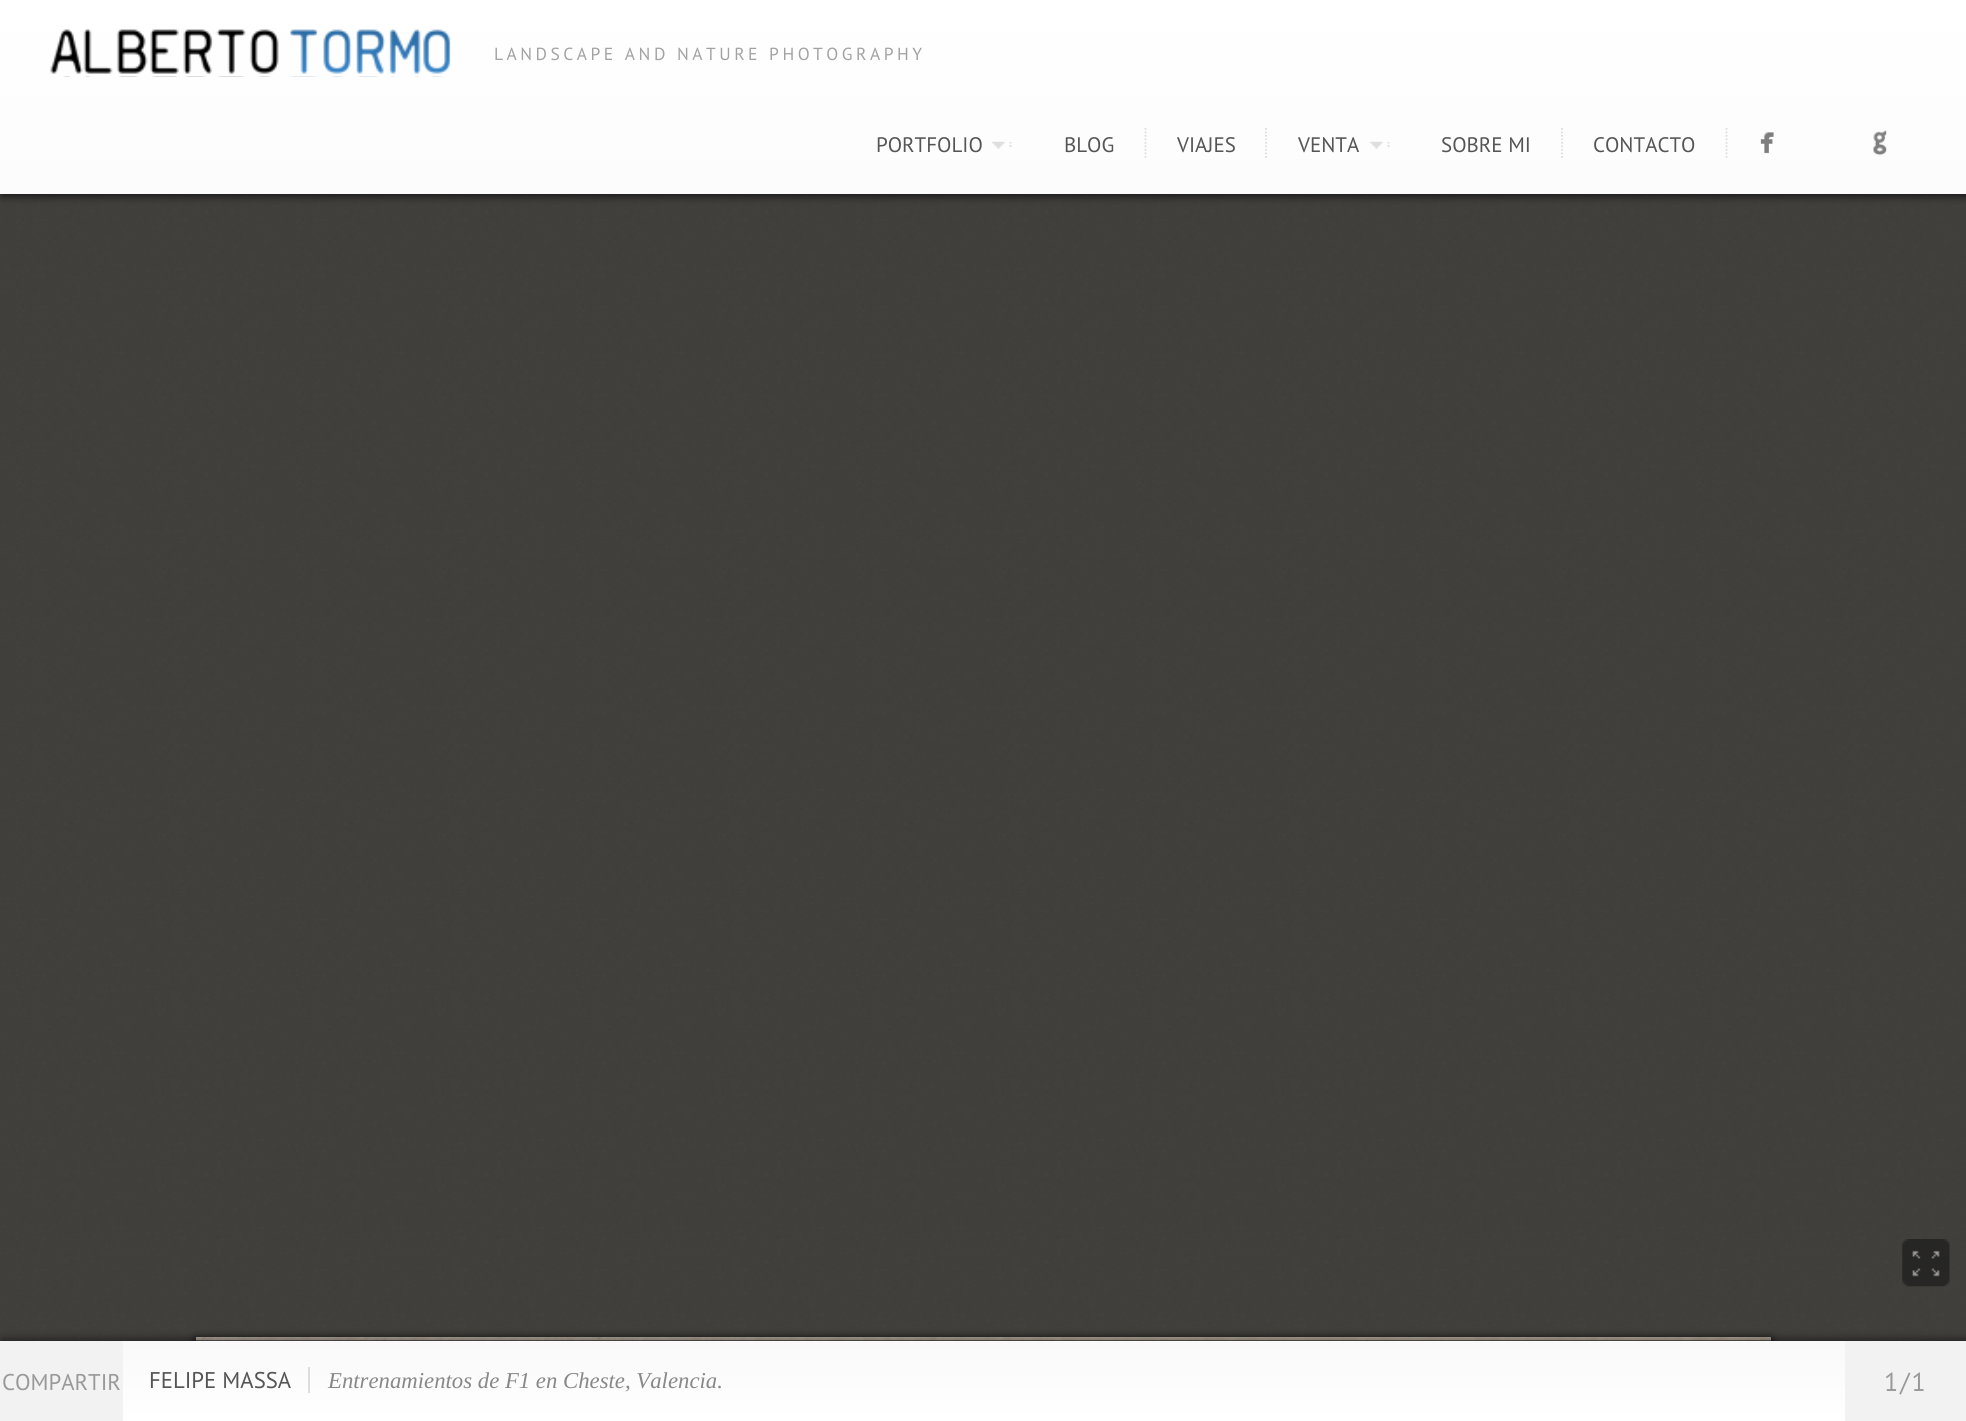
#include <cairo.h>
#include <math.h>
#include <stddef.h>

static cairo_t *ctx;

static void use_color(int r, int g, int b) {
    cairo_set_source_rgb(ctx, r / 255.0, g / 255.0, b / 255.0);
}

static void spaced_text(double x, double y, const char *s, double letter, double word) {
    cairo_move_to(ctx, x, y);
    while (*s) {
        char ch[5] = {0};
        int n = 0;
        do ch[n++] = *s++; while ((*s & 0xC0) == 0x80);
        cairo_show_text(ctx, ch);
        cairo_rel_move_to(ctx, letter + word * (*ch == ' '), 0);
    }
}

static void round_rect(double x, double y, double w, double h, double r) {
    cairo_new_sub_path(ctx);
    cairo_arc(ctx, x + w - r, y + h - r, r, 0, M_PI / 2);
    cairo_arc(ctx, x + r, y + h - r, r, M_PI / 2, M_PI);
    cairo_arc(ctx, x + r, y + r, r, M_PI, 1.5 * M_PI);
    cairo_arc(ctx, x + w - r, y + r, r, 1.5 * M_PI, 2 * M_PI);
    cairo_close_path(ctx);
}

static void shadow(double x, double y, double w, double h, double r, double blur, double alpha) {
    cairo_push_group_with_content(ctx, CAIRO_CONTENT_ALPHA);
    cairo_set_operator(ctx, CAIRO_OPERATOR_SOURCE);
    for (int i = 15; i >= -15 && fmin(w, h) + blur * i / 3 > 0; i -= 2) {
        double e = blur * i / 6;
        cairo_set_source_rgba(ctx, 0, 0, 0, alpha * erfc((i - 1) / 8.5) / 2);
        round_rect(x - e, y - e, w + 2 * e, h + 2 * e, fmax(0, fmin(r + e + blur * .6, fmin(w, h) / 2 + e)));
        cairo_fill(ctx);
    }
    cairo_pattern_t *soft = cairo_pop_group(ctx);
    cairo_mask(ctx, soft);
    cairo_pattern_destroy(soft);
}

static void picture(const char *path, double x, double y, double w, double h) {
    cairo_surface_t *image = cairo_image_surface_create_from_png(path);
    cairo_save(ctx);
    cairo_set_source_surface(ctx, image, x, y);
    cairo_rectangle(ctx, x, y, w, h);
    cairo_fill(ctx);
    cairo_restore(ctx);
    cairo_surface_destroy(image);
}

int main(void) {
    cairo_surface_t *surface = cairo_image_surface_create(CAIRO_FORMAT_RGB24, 1966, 1421);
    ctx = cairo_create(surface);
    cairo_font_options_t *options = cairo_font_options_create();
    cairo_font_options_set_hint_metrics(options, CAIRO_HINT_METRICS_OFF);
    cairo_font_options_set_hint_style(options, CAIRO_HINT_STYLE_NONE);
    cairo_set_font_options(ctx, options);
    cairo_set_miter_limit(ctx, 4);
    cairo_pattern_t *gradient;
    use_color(87, 86, 82);
    cairo_paint(ctx);
    picture("img1.png", 0, 194, 1966, 1147);
    use_color(0, 0, 0);
    shadow(2, 2, 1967, 194, 0, 4.5, 0.7);
    gradient = cairo_pattern_create_linear(984, 0, 984, 194);
    cairo_pattern_add_color_stop_rgba(gradient, 0, 1, 1, 1, 1);
    cairo_pattern_add_color_stop_rgba(gradient, 1, 0.988, 0.988, 0.988, 1);
    cairo_set_source(ctx, gradient);
    cairo_pattern_destroy(gradient);
    cairo_rectangle(ctx, 0, 0, 1966, 194);
    cairo_fill(ctx);
    picture("img2.png", 50, 29, 401, 48);
    cairo_select_font_face(ctx, "PT Sans", CAIRO_FONT_SLANT_NORMAL, CAIRO_FONT_WEIGHT_NORMAL);
    cairo_set_font_size(ctx, 17.5);
    use_color(162, 162, 162);
    spaced_text(494, 60, "LANDSCAPE AND NATURE PHOTOGRAPHY", 3.5, 0);
    cairo_new_path(ctx);
    cairo_move_to(ctx, 1010.5, 142);
    cairo_line_to(ctx, 1010.5, 143.5);
    cairo_move_to(ctx, 1010.5, 145);
    cairo_line_to(ctx, 1010.5, 147);
    use_color(221, 221, 221);
    cairo_set_line_width(ctx, 1.8);
    cairo_stroke(ctx);
    cairo_set_font_size(ctx, 21);
    use_color(85, 85, 85);
    cairo_move_to(ctx, 876, 152);
    cairo_show_text(ctx, "PORTFOLIO");
    picture("img3.png", 992, 141, 13, 8);
    cairo_move_to(ctx, 1064, 152);
    cairo_show_text(ctx, "BLOG");
    cairo_new_path(ctx);
    cairo_move_to(ctx, 1145.5, 128);
    cairo_line_to(ctx, 1145.5, 159);
    use_color(221, 221, 221);
    cairo_set_dash(ctx, (double[]){1.75, 1.75}, 2, 0);
    cairo_stroke(ctx);
    use_color(85, 85, 85);
    cairo_move_to(ctx, 1177, 152);
    cairo_show_text(ctx, "VIAJES");
    cairo_new_path(ctx);
    cairo_move_to(ctx, 1266, 128);
    cairo_line_to(ctx, 1266, 159);
    use_color(221, 221, 221);
    cairo_stroke(ctx);
    cairo_new_path(ctx);
    cairo_move_to(ctx, 1388.5, 142);
    cairo_line_to(ctx, 1388.5, 143.5);
    cairo_move_to(ctx, 1388.5, 145);
    cairo_line_to(ctx, 1388.5, 147);
    cairo_set_dash(ctx, NULL, 0, 0);
    cairo_stroke(ctx);
    use_color(85, 85, 85);
    cairo_move_to(ctx, 1298, 152);
    cairo_show_text(ctx, "VENTA");
    picture("img4.png", 1370, 141, 13, 8);
    cairo_move_to(ctx, 1441, 152);
    cairo_show_text(ctx, "SOBRE MI");
    cairo_new_path(ctx);
    cairo_move_to(ctx, 1562, 128);
    cairo_line_to(ctx, 1562, 159);
    use_color(221, 221, 221);
    cairo_set_dash(ctx, (double[]){1.75, 1.75}, 2, 0);
    cairo_stroke(ctx);
    use_color(85, 85, 85);
    cairo_move_to(ctx, 1593, 152);
    cairo_show_text(ctx, "CONTACTO");
    cairo_new_path(ctx);
    cairo_move_to(ctx, 1726.5, 128);
    cairo_line_to(ctx, 1726.5, 159);
    use_color(221, 221, 221);
    cairo_stroke(ctx);
    picture("img5.png", 1760, 132, 14, 22);
    picture("img6.png", 1873, 130, 14, 26);
    picture("img7.png", 1902, 1239, 48, 48);
    use_color(0, 0, 0);
    shadow(196, 1339, 1575, 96, 0, 4.5, 0.9);
    picture("img8.png", 196, 1337, 1575, 4);
    shadow(2, 1339, 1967, 80, 0, 4.5, 0.5);
    gradient = cairo_pattern_create_linear(984, 1340, 984, 1421);
    cairo_pattern_add_color_stop_rgba(gradient, 0, 0.976, 0.976, 0.976, 1);
    cairo_pattern_add_color_stop_rgba(gradient, 1, 1, 1, 1, 1);
    cairo_set_source(ctx, gradient);
    cairo_pattern_destroy(gradient);
    cairo_rectangle(ctx, 123, 1341, 1722, 80);
    cairo_fill(ctx);
    use_color(242, 242, 242);
    cairo_rectangle(ctx, 0, 1341, 123, 80);
    cairo_fill(ctx);
    cairo_set_font_size(ctx, 22.75);
    use_color(153, 153, 153);
    cairo_move_to(ctx, 2, 1390);
    cairo_show_text(ctx, "COMPARTIR");
    use_color(85, 85, 85);
    cairo_move_to(ctx, 149, 1388);
    cairo_show_text(ctx, "FELIPE MASSA");
    cairo_select_font_face(ctx, "Liberation Serif", CAIRO_FONT_SLANT_ITALIC, CAIRO_FONT_WEIGHT_NORMAL);
    use_color(136, 136, 136);
    cairo_move_to(ctx, 328, 1388);
    cairo_show_text(ctx, "Entrenamientos de F1 en Cheste, Valencia.");
    use_color(221, 221, 221);
    cairo_rectangle(ctx, 308, 1367, 2, 26);
    cairo_fill(ctx);
    use_color(242, 242, 242);
    cairo_rectangle(ctx, 1845, 1341, 121, 80);
    cairo_fill(ctx);
    cairo_select_font_face(ctx, "PT Sans", CAIRO_FONT_SLANT_NORMAL, CAIRO_FONT_WEIGHT_NORMAL);
    cairo_set_font_size(ctx, 26);
    use_color(153, 153, 153);
    spaced_text(1884, 1391, "1/1", 2, 0);
    cairo_surface_write_to_png(surface, "result.png");
    cairo_font_options_destroy(options);
    cairo_destroy(ctx);
    cairo_surface_destroy(surface);
    return 0;
}
